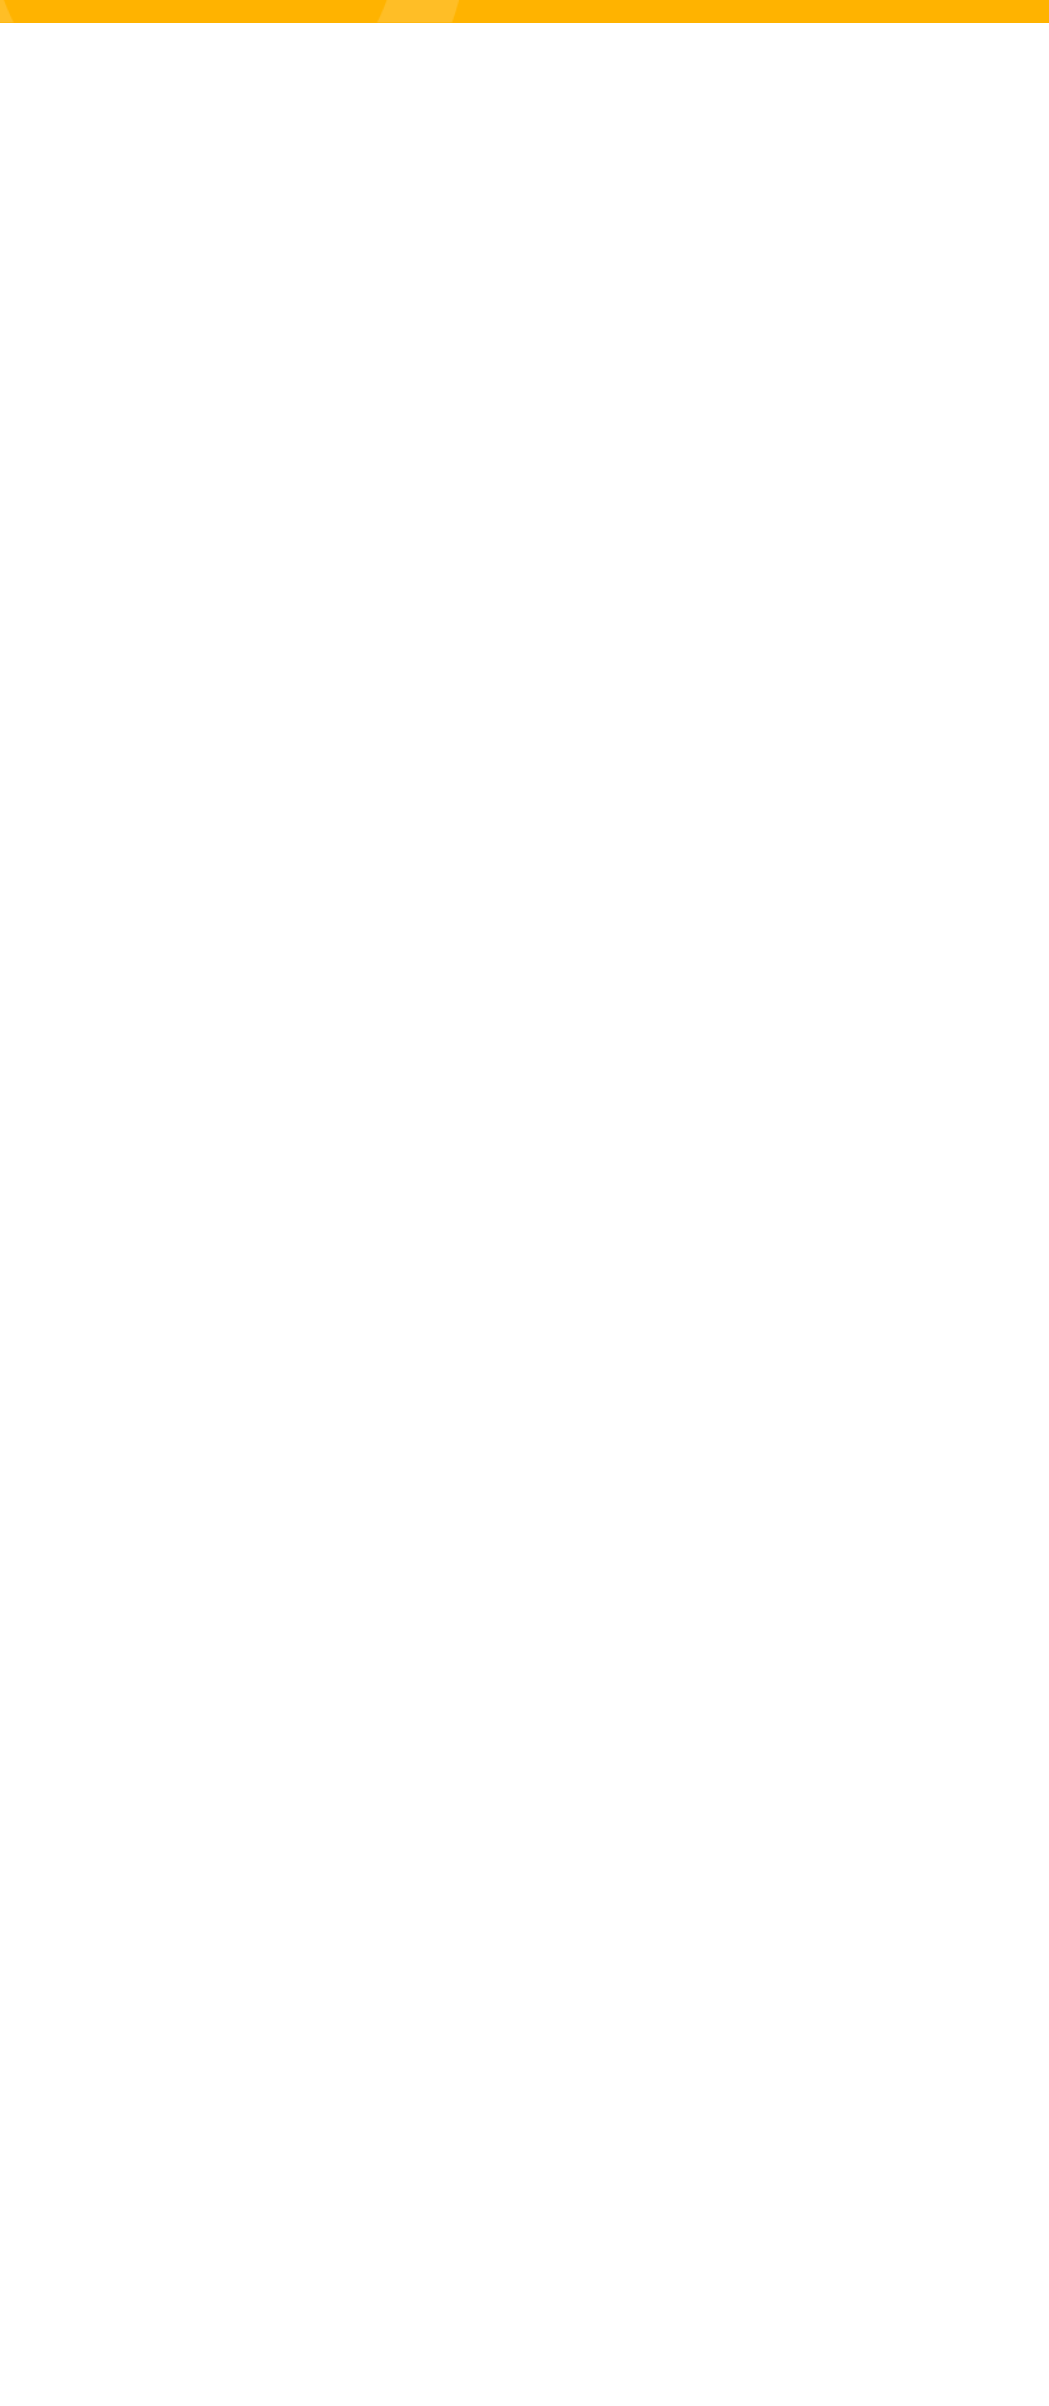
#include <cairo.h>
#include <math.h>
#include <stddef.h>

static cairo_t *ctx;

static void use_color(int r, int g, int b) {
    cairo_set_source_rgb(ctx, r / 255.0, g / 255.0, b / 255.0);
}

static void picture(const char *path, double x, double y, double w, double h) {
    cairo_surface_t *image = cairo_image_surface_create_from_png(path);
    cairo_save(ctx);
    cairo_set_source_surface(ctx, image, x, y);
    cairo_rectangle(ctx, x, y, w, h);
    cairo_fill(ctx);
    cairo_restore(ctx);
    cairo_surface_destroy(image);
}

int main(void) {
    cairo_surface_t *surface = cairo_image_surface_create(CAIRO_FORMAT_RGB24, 1049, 2406);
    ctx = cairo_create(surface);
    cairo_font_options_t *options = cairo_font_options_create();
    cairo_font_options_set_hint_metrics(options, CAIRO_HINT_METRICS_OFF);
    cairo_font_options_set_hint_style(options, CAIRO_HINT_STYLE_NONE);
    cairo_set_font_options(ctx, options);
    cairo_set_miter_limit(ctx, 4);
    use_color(255, 255, 255);
    cairo_paint(ctx);
    use_color(255, 179, 0);
    cairo_rectangle(ctx, 0, 0, 1049, 23);
    cairo_fill(ctx);
    picture("img1.png", 0, 0, 459, 23);
    cairo_surface_write_to_png(surface, "result.png");
    cairo_font_options_destroy(options);
    cairo_destroy(ctx);
    cairo_surface_destroy(surface);
    return 0;
}
